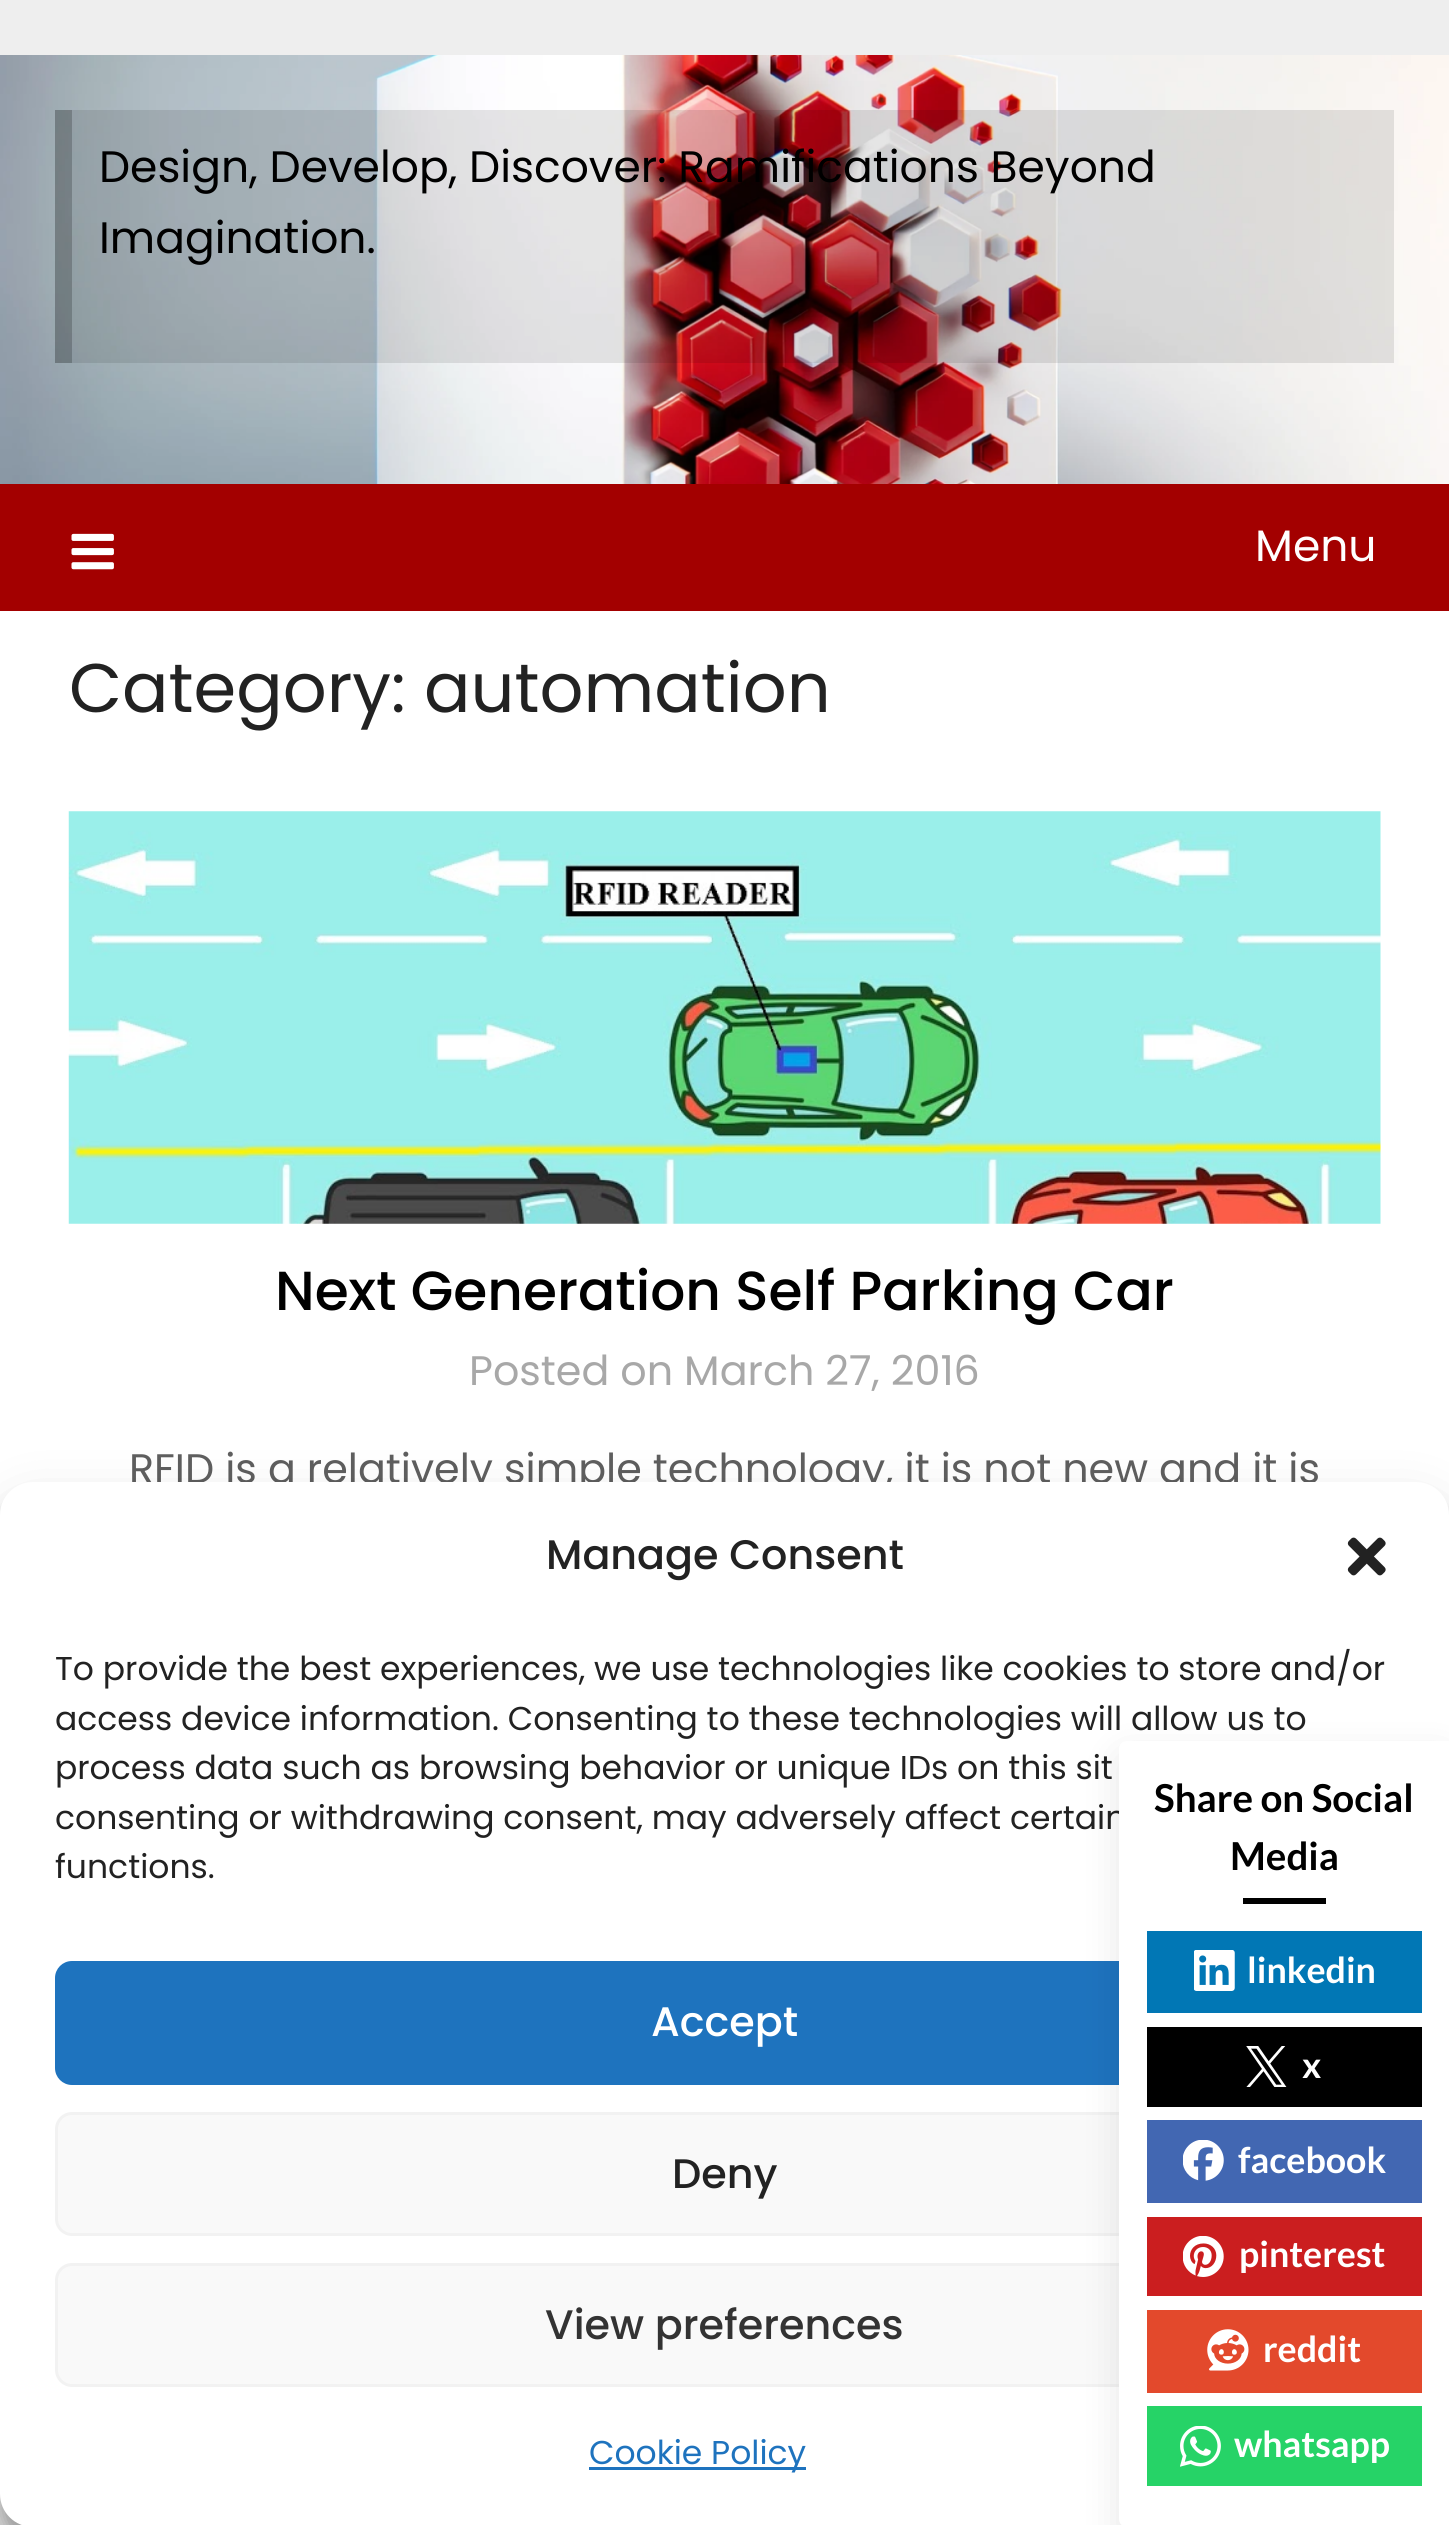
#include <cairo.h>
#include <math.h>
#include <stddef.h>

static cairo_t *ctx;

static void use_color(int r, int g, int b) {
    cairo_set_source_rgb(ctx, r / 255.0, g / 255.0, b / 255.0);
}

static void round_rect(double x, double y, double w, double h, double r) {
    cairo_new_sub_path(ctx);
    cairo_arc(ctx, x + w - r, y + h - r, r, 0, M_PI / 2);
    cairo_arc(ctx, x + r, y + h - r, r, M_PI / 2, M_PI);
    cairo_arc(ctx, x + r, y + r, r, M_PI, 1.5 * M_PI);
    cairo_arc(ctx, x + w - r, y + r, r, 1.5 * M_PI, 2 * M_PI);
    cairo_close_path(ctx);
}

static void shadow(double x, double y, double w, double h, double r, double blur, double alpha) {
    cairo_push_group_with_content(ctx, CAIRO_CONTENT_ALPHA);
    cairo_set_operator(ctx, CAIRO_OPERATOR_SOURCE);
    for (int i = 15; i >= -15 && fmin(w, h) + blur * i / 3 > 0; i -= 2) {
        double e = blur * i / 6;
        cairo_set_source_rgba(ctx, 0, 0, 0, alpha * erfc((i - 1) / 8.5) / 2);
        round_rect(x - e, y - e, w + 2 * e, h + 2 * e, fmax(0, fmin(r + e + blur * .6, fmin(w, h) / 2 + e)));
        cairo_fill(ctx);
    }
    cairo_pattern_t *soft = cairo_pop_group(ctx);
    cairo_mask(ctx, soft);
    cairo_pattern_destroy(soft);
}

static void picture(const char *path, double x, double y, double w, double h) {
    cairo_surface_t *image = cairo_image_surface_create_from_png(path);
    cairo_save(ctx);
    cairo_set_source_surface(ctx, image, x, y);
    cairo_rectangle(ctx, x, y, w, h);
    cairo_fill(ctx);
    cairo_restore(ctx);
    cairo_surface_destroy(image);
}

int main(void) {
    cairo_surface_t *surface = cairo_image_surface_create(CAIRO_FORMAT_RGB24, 1449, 2525);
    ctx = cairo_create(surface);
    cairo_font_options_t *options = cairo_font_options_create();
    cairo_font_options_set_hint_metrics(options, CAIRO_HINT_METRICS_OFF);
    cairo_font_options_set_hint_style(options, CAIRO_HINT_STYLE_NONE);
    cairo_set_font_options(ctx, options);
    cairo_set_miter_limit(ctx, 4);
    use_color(238, 238, 238);
    cairo_paint(ctx);
    picture("img1.png", 0, 55, 1449, 429);
    cairo_set_source_rgba(ctx, 0, 0, 0, 0.1);
    cairo_rectangle(ctx, 55, 110, 1339, 253);
    cairo_fill(ctx);
    cairo_set_source_rgba(ctx, 0, 0, 0, 0.2);
    cairo_rectangle(ctx, 55, 110, 17, 253);
    cairo_fill(ctx);
    cairo_select_font_face(ctx, "Poppins", CAIRO_FONT_SLANT_NORMAL, CAIRO_FONT_WEIGHT_NORMAL);
    cairo_set_font_size(ctx, 44);
    use_color(0, 0, 0);
    cairo_move_to(ctx, 99, 182);
    cairo_show_text(ctx, "Design, Develop, Discover: Ramifications Beyond");
    cairo_move_to(ctx, 99, 253);
    cairo_show_text(ctx, "Imagination.");
    use_color(163, 0, 0);
    cairo_rectangle(ctx, 0, 484, 1449, 127);
    cairo_fill(ctx);
    picture("img2.png", 71, 533, 43, 37);
    use_color(255, 255, 255);
    cairo_move_to(ctx, 1255, 561);
    cairo_show_text(ctx, "Menu");
    cairo_rectangle(ctx, 0, 611, 1449, 904);
    cairo_fill(ctx);
    cairo_set_font_size(ctx, 68.75);
    use_color(34, 34, 34);
    cairo_move_to(ctx, 69, 712);
    cairo_show_text(ctx, "Category: automation");
    picture("img3.png", 68, 811, 1313, 413);
    cairo_select_font_face(ctx, "Poppins Medium", CAIRO_FONT_SLANT_NORMAL, CAIRO_FONT_WEIGHT_NORMAL);
    cairo_set_font_size(ctx, 55);
    use_color(0, 0, 0);
    cairo_move_to(ctx, 275, 1310);
    cairo_show_text(ctx, "Next Generation Self Parking Car");
    cairo_select_font_face(ctx, "Poppins", CAIRO_FONT_SLANT_NORMAL, CAIRO_FONT_WEIGHT_NORMAL);
    cairo_set_font_size(ctx, 41.25);
    use_color(168, 168, 168);
    cairo_move_to(ctx, 469, 1385);
    cairo_show_text(ctx, "Posted on March 27, 2016");
    use_color(94, 94, 94);
    cairo_move_to(ctx, 129, 1483);
    cairo_show_text(ctx, "RFID is a relatively simple technology, it is not new and it is");
    use_color(0, 0, 0);
    shadow(0, 1499, 1449, 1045, 33, 8, 0.23);
    shadow(0, 1510, 1449, 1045, 33, 27.5, 0.19);
    use_color(255, 255, 255);
    round_rect(0, 1482, 1449, 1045, 33);
    cairo_fill(ctx);
    cairo_select_font_face(ctx, "Poppins Medium", CAIRO_FONT_SLANT_NORMAL, CAIRO_FONT_WEIGHT_NORMAL);
    use_color(34, 34, 34);
    cairo_move_to(ctx, 546, 1569);
    cairo_show_text(ctx, "Manage Consent");
    picture("img4.png", 1347, 1537, 39, 39);
    cairo_select_font_face(ctx, "Poppins", CAIRO_FONT_SLANT_NORMAL, CAIRO_FONT_WEIGHT_NORMAL);
    cairo_set_font_size(ctx, 33);
    cairo_move_to(ctx, 55, 1680);
    cairo_show_text(ctx, "To provide the best experiences, we use technologies like cookies to store and/or");
    cairo_move_to(ctx, 55, 1730);
    cairo_show_text(ctx, "access device information. Consenting to these technologies will allow us to");
    cairo_move_to(ctx, 55, 1779);
    cairo_show_text(ctx, "process data such as browsing behavior or unique IDs on this sit");
    cairo_move_to(ctx, 55, 1829);
    cairo_show_text(ctx, "consenting or withdrawing consent, may adversely affect certain");
    cairo_move_to(ctx, 55, 1878);
    cairo_show_text(ctx, "functions.");
    use_color(30, 115, 190);
    round_rect(56.5, 1962.5, 1336, 121, 15.5);
    cairo_fill_preserve(ctx);
    cairo_set_line_width(ctx, 3);
    cairo_stroke(ctx);
    cairo_select_font_face(ctx, "Poppins Medium", CAIRO_FONT_SLANT_NORMAL, CAIRO_FONT_WEIGHT_NORMAL);
    cairo_set_font_size(ctx, 41.25);
    use_color(255, 255, 255);
    cairo_move_to(ctx, 651, 2036);
    cairo_show_text(ctx, "Accept");
    use_color(249, 249, 249);
    round_rect(56.5, 2113.5, 1336, 121, 15.5);
    cairo_fill_preserve(ctx);
    use_color(242, 242, 242);
    cairo_stroke(ctx);
    use_color(34, 34, 34);
    cairo_move_to(ctx, 672, 2188);
    cairo_show_text(ctx, "Deny");
    use_color(249, 249, 249);
    round_rect(56.5, 2264.5, 1336, 121, 15.5);
    cairo_fill_preserve(ctx);
    use_color(242, 242, 242);
    cairo_stroke(ctx);
    use_color(51, 51, 51);
    cairo_move_to(ctx, 545, 2339);
    cairo_show_text(ctx, "View preferences");
    use_color(30, 115, 190);
    cairo_rectangle(ctx, 589, 2467, 217, 3);
    cairo_fill(ctx);
    cairo_select_font_face(ctx, "Poppins", CAIRO_FONT_SLANT_NORMAL, CAIRO_FONT_WEIGHT_NORMAL);
    cairo_set_font_size(ctx, 33);
    cairo_move_to(ctx, 589, 2464);
    cairo_show_text(ctx, "Cookie Policy");
    use_color(0, 0, 0);
    shadow(1119, 1755, 330, 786, 8, 18, 0.1);
    use_color(255, 255, 255);
    cairo_new_path(ctx);
    cairo_move_to(ctx, 1127, 1741);
    cairo_line_to(ctx, 1449, 1741);
    cairo_line_to(ctx, 1449, 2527);
    cairo_line_to(ctx, 1127, 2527);
    cairo_curve_to(ctx, 1122.5, 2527, 1119, 2523.5, 1119, 2519);
    cairo_line_to(ctx, 1119, 1749);
    cairo_curve_to(ctx, 1119, 1744.5, 1122.5, 1741, 1127, 1741);
    cairo_close_path(ctx);
    cairo_fill(ctx);
    cairo_select_font_face(ctx, "Lato", CAIRO_FONT_SLANT_NORMAL, CAIRO_FONT_WEIGHT_BOLD);
    cairo_set_font_size(ctx, 38.5);
    use_color(0, 0, 0);
    cairo_move_to(ctx, 1154, 1812);
    cairo_show_text(ctx, "Share on Social");
    cairo_move_to(ctx, 1230, 1870);
    cairo_show_text(ctx, "Media");
    cairo_rectangle(ctx, 1243, 1898, 83, 6);
    cairo_fill(ctx);
    use_color(1, 119, 181);
    cairo_rectangle(ctx, 1147, 1931, 275, 82);
    cairo_fill(ctx);
    picture("img5.png", 1194, 1950, 41, 41);
    cairo_set_font_size(ctx, 35.75);
    use_color(255, 255, 255);
    cairo_move_to(ctx, 1247, 1983);
    cairo_show_text(ctx, "linkedin");
    use_color(0, 0, 0);
    cairo_rectangle(ctx, 1147, 2027, 275, 80);
    cairo_fill(ctx);
    picture("img6.png", 1246, 2046, 41, 41);
    use_color(255, 255, 255);
    cairo_move_to(ctx, 1302, 2078);
    cairo_show_text(ctx, "x");
    use_color(66, 103, 178);
    cairo_rectangle(ctx, 1147, 2120, 275, 83);
    cairo_fill(ctx);
    picture("img7.png", 1183, 2140, 41, 41);
    use_color(255, 255, 255);
    cairo_move_to(ctx, 1238, 2173);
    cairo_show_text(ctx, "facebook");
    use_color(203, 30, 31);
    cairo_rectangle(ctx, 1147, 2217, 275, 79);
    cairo_fill(ctx);
    picture("img8.png", 1183, 2236, 41, 41);
    use_color(255, 255, 255);
    cairo_move_to(ctx, 1239, 2267);
    cairo_show_text(ctx, "pinterest");
    use_color(227, 73, 44);
    cairo_rectangle(ctx, 1147, 2310, 275, 83);
    cairo_fill(ctx);
    picture("img9.png", 1207, 2329, 42, 42);
    use_color(255, 255, 255);
    cairo_move_to(ctx, 1263, 2362);
    cairo_show_text(ctx, "reddit");
    use_color(38, 211, 103);
    cairo_rectangle(ctx, 1147, 2406, 275, 80);
    cairo_fill(ctx);
    picture("img10.png", 1180, 2426, 41, 41);
    use_color(255, 255, 255);
    cairo_move_to(ctx, 1234, 2457);
    cairo_show_text(ctx, "whatsapp");
    cairo_surface_write_to_png(surface, "result.png");
    cairo_font_options_destroy(options);
    cairo_destroy(ctx);
    cairo_surface_destroy(surface);
    return 0;
}
